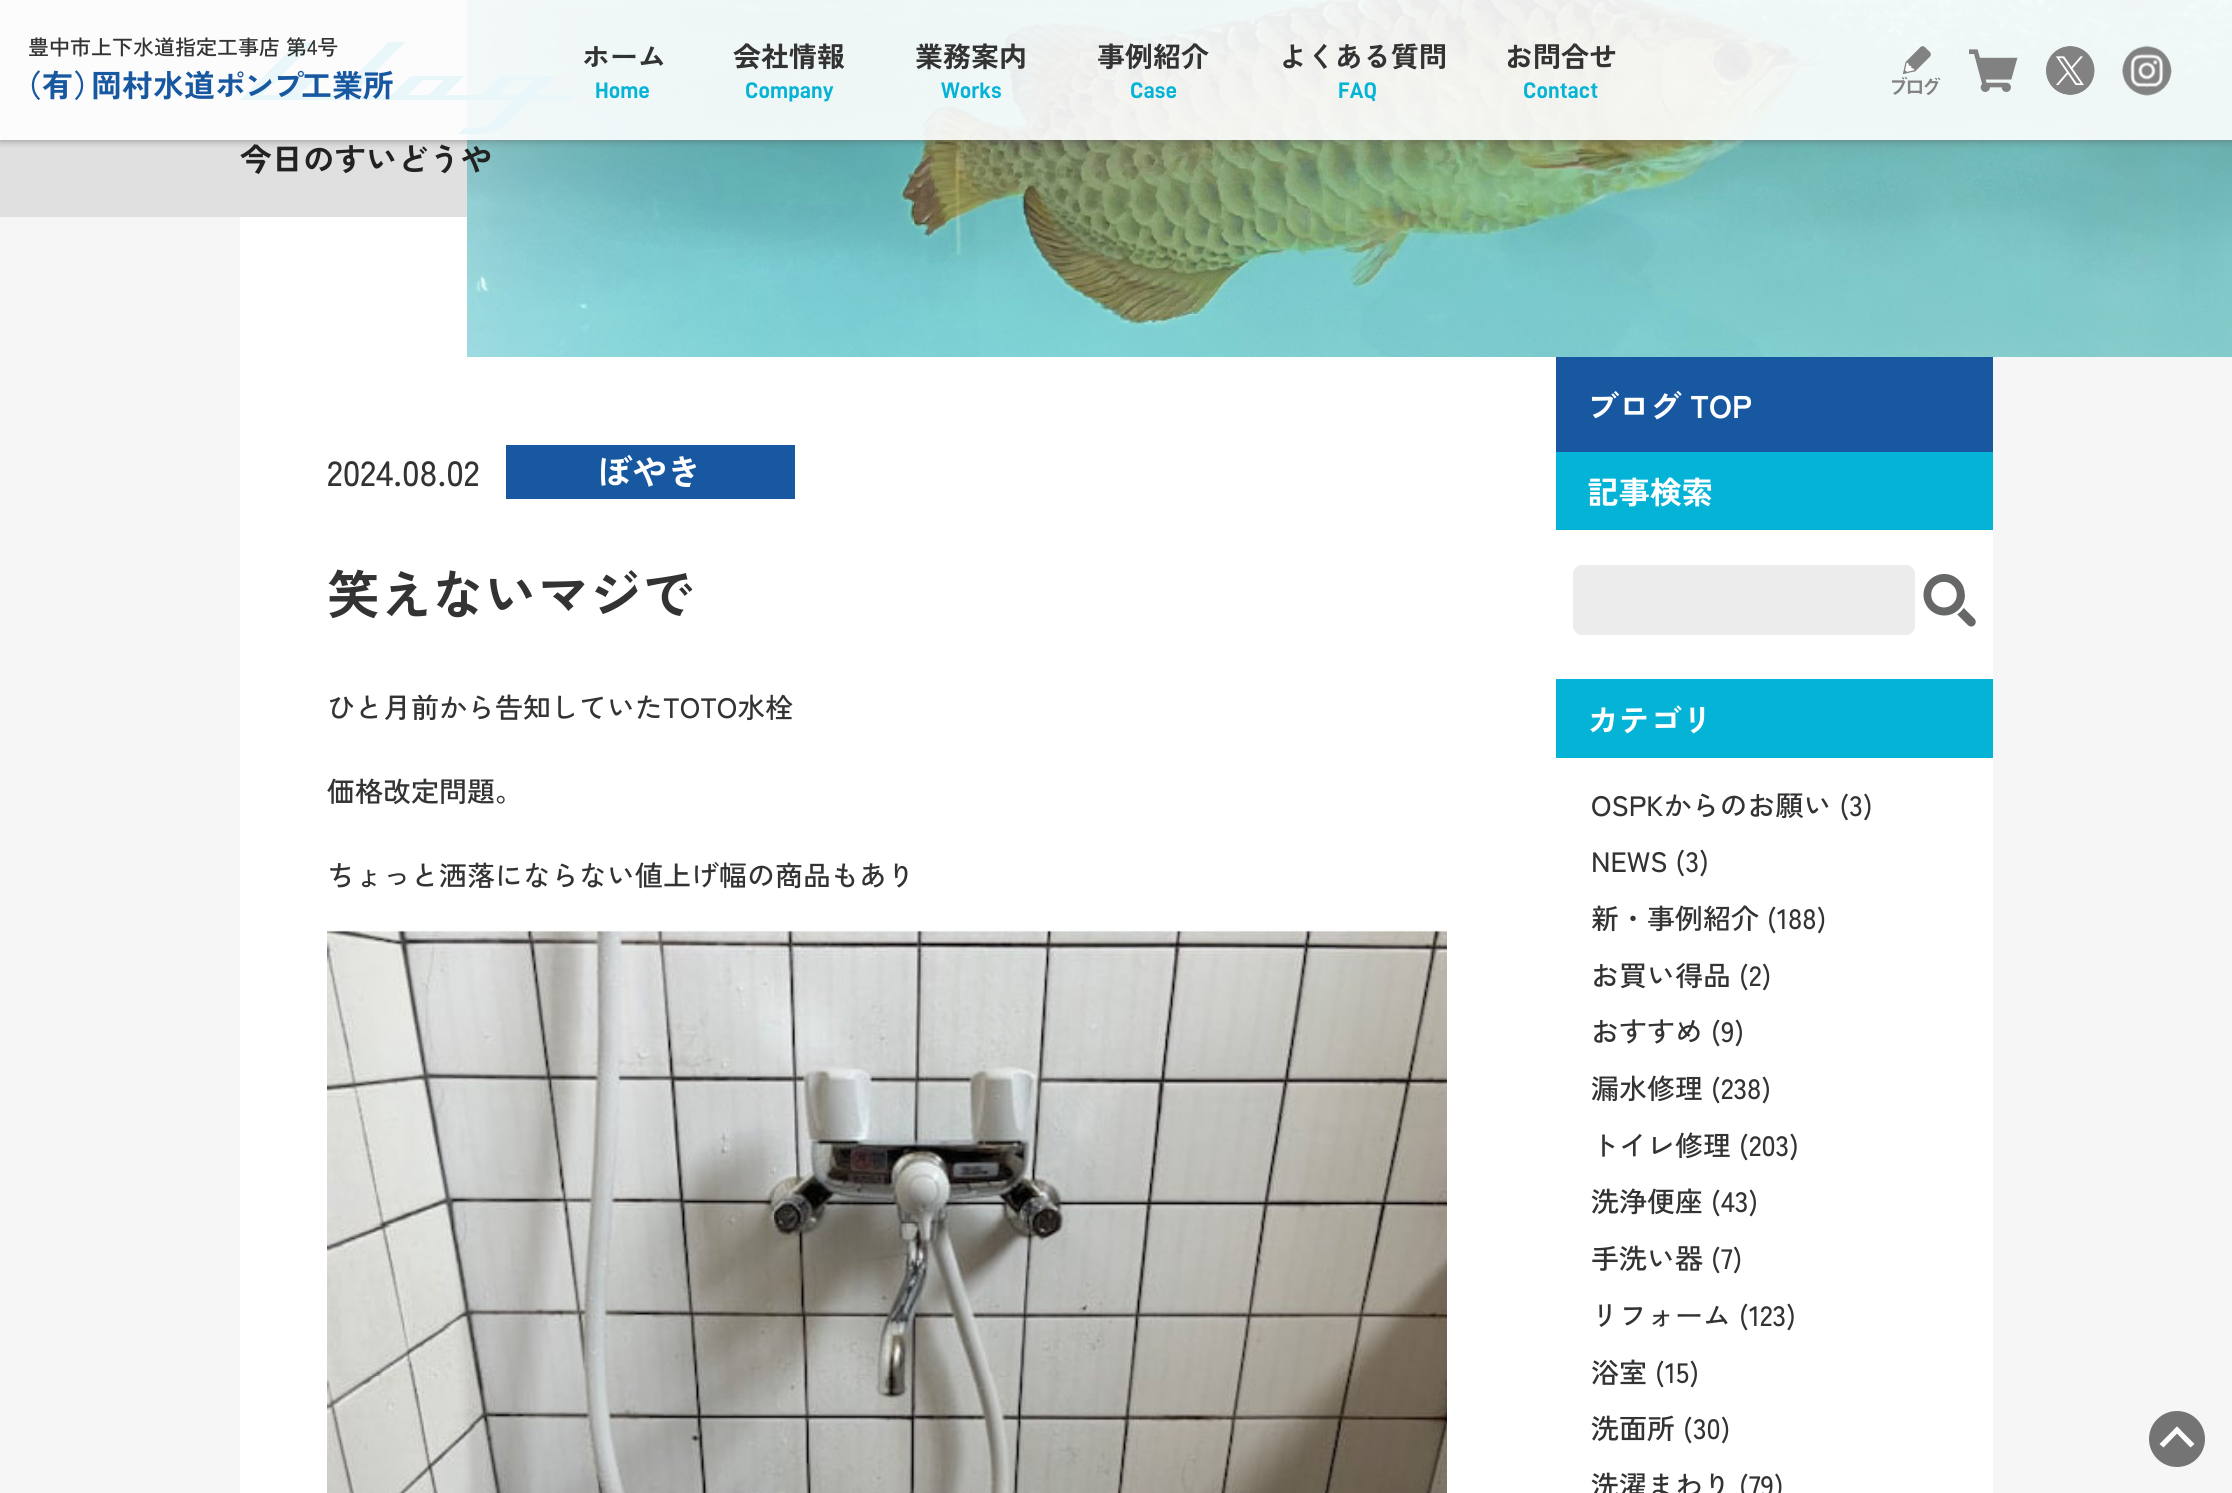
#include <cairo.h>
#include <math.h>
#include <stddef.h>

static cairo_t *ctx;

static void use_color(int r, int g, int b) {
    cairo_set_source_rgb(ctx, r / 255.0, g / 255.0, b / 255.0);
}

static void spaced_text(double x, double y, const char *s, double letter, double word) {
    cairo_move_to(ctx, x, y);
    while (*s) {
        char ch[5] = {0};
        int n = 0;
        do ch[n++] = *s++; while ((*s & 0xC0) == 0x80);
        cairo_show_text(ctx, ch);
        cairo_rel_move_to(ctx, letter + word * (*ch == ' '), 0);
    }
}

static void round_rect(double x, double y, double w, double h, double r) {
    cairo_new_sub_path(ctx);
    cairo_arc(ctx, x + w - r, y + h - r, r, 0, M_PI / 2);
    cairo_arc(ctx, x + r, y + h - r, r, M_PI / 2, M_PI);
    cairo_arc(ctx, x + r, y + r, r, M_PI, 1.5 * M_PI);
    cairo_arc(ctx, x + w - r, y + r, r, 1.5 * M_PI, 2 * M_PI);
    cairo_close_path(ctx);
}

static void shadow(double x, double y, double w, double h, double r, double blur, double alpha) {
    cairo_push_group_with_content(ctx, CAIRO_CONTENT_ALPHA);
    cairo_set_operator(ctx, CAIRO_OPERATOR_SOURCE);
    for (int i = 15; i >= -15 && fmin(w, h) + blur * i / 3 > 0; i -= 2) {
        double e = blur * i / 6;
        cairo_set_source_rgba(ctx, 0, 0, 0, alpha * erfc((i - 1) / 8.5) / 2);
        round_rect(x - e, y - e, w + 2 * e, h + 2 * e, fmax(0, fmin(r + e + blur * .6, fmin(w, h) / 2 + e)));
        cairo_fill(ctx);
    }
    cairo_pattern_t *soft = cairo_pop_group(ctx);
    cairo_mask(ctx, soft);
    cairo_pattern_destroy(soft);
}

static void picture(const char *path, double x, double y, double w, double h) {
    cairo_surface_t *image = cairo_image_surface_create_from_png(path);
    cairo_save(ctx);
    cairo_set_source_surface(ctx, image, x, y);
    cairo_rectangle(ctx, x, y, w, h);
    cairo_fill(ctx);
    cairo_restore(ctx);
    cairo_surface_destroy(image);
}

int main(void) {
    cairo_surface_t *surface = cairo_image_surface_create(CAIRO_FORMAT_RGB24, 2232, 1493);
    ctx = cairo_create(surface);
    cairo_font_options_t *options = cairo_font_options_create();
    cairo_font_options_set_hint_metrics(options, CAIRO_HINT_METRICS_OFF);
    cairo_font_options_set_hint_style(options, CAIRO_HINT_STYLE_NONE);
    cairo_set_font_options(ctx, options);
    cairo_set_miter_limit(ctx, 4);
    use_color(246, 246, 246);
    cairo_paint(ctx);
    use_color(224, 224, 224);
    cairo_rectangle(ctx, 0, 0, 467, 217);
    cairo_fill(ctx);
    use_color(255, 255, 255);
    cairo_rectangle(ctx, 240, 217, 1753, 1276);
    cairo_fill(ctx);
    picture("img6.png", 467, 0, 1765, 357);
    picture("img5.png", 240, 42, 334, 92);
    cairo_save(ctx);
    cairo_rectangle(ctx, 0, 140, 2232, 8);
    cairo_clip(ctx);
    use_color(80, 80, 80);
    shadow(0, 0, 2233, 140, 0, 4.5, 0.6);
    cairo_restore(ctx);
    cairo_set_source_rgba(ctx, 1, 1, 1, 0.9);
    cairo_rectangle(ctx, 0, 0, 2232, 140);
    cairo_fill(ctx);
    cairo_select_font_face(ctx, "Zen Kaku Gothic New Medium", CAIRO_FONT_SLANT_NORMAL, CAIRO_FONT_WEIGHT_NORMAL);
    cairo_set_font_size(ctx, 21);
    use_color(51, 51, 51);
    cairo_move_to(ctx, 28, 55);
    cairo_show_text(ctx, "豊中市上下水道指定工事店 第4号");
    cairo_select_font_face(ctx, "Zen Kaku Gothic New", CAIRO_FONT_SLANT_NORMAL, CAIRO_FONT_WEIGHT_BOLD);
    cairo_set_font_size(ctx, 31);
    use_color(23, 88, 160);
    cairo_move_to(ctx, 11, 97);
    cairo_show_text(ctx, "（有");
    spaced_text(73, 97, "）", -12, 0);
    cairo_move_to(ctx, 91, 97);
    cairo_show_text(ctx, "岡村水道");
    spaced_text(215, 97, "ポンプ", -2, 0);
    cairo_move_to(ctx, 301, 97);
    cairo_show_text(ctx, "工業所");
    cairo_set_font_size(ctx, 28);
    use_color(51, 51, 51);
    cairo_move_to(ctx, 582, 67);
    cairo_show_text(ctx, "ホーム");
    cairo_select_font_face(ctx, "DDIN", CAIRO_FONT_SLANT_NORMAL, CAIRO_FONT_WEIGHT_BOLD);
    cairo_set_font_size(ctx, 22.5);
    use_color(5, 179, 214);
    cairo_move_to(ctx, 595, 98);
    cairo_show_text(ctx, "Home");
    cairo_select_font_face(ctx, "Zen Kaku Gothic New", CAIRO_FONT_SLANT_NORMAL, CAIRO_FONT_WEIGHT_BOLD);
    cairo_set_font_size(ctx, 28);
    use_color(51, 51, 51);
    cairo_move_to(ctx, 733, 67);
    cairo_show_text(ctx, "会社情報");
    cairo_select_font_face(ctx, "DDIN", CAIRO_FONT_SLANT_NORMAL, CAIRO_FONT_WEIGHT_BOLD);
    cairo_set_font_size(ctx, 22.5);
    use_color(5, 179, 214);
    cairo_move_to(ctx, 745, 98);
    cairo_show_text(ctx, "Company");
    cairo_select_font_face(ctx, "Zen Kaku Gothic New", CAIRO_FONT_SLANT_NORMAL, CAIRO_FONT_WEIGHT_BOLD);
    cairo_set_font_size(ctx, 28);
    use_color(51, 51, 51);
    cairo_move_to(ctx, 915, 67);
    cairo_show_text(ctx, "業務案内");
    cairo_select_font_face(ctx, "DDIN", CAIRO_FONT_SLANT_NORMAL, CAIRO_FONT_WEIGHT_BOLD);
    cairo_set_font_size(ctx, 22.5);
    use_color(5, 179, 214);
    cairo_move_to(ctx, 941, 98);
    cairo_show_text(ctx, "Works");
    cairo_select_font_face(ctx, "Zen Kaku Gothic New", CAIRO_FONT_SLANT_NORMAL, CAIRO_FONT_WEIGHT_BOLD);
    cairo_set_font_size(ctx, 28);
    use_color(51, 51, 51);
    cairo_move_to(ctx, 1097, 67);
    cairo_show_text(ctx, "事例紹介");
    cairo_select_font_face(ctx, "DDIN", CAIRO_FONT_SLANT_NORMAL, CAIRO_FONT_WEIGHT_BOLD);
    cairo_set_font_size(ctx, 22.5);
    use_color(5, 179, 214);
    cairo_move_to(ctx, 1130, 98);
    cairo_show_text(ctx, "Case");
    cairo_select_font_face(ctx, "Zen Kaku Gothic New", CAIRO_FONT_SLANT_NORMAL, CAIRO_FONT_WEIGHT_BOLD);
    cairo_set_font_size(ctx, 28);
    use_color(51, 51, 51);
    cairo_move_to(ctx, 1279, 67);
    cairo_show_text(ctx, "よくある質問");
    cairo_select_font_face(ctx, "DDIN", CAIRO_FONT_SLANT_NORMAL, CAIRO_FONT_WEIGHT_BOLD);
    cairo_set_font_size(ctx, 22.5);
    use_color(5, 179, 214);
    cairo_move_to(ctx, 1338, 98);
    cairo_show_text(ctx, "FAQ");
    cairo_select_font_face(ctx, "Zen Kaku Gothic New", CAIRO_FONT_SLANT_NORMAL, CAIRO_FONT_WEIGHT_BOLD);
    cairo_set_font_size(ctx, 28);
    use_color(51, 51, 51);
    cairo_move_to(ctx, 1505, 67);
    cairo_show_text(ctx, "お問合せ");
    cairo_select_font_face(ctx, "DDIN", CAIRO_FONT_SLANT_NORMAL, CAIRO_FONT_WEIGHT_BOLD);
    cairo_set_font_size(ctx, 22.5);
    use_color(5, 179, 214);
    cairo_move_to(ctx, 1523, 98);
    cairo_show_text(ctx, "Contact");
    picture("img1.png", 1892, 46, 49, 49);
    picture("img2.png", 1969, 49, 49, 43);
    picture("img3.png", 2046, 46, 49, 49);
    picture("img4.png", 2122, 45, 50, 51);
    cairo_select_font_face(ctx, "Zen Kaku Gothic New", CAIRO_FONT_SLANT_NORMAL, CAIRO_FONT_WEIGHT_BOLD);
    cairo_set_font_size(ctx, 31.5);
    use_color(34, 34, 34);
    cairo_move_to(ctx, 240, 171);
    cairo_show_text(ctx, "今日のすいどうや");
    cairo_select_font_face(ctx, "Zen Kaku Gothic New Medium", CAIRO_FONT_SLANT_NORMAL, CAIRO_FONT_WEIGHT_NORMAL);
    cairo_set_font_size(ctx, 35);
    use_color(51, 51, 51);
    cairo_move_to(ctx, 327, 486);
    cairo_show_text(ctx, "2024.08.02");
    use_color(23, 88, 160);
    cairo_rectangle(ctx, 506, 445, 289, 54);
    cairo_fill(ctx);
    cairo_select_font_face(ctx, "Zen Kaku Gothic New", CAIRO_FONT_SLANT_NORMAL, CAIRO_FONT_WEIGHT_BOLD);
    use_color(255, 255, 255);
    cairo_move_to(ctx, 597, 485);
    cairo_show_text(ctx, "ぼやき");
    cairo_set_font_size(ctx, 52.5);
    use_color(51, 51, 51);
    cairo_move_to(ctx, 327, 614);
    cairo_show_text(ctx, "笑えないマジで");
    cairo_select_font_face(ctx, "Zen Kaku Gothic New Medium", CAIRO_FONT_SLANT_NORMAL, CAIRO_FONT_WEIGHT_NORMAL);
    cairo_set_font_size(ctx, 28);
    cairo_move_to(ctx, 327, 718);
    cairo_show_text(ctx, "ひと月前から告知していたTOTO水栓");
    cairo_move_to(ctx, 327, 802);
    cairo_show_text(ctx, "価格改定問題。");
    cairo_move_to(ctx, 327, 886);
    cairo_show_text(ctx, "ちょっと洒落にならない値上げ幅の商品もあり");
    picture("img7.png", 327, 930, 1120, 563);
    use_color(23, 88, 160);
    cairo_rectangle(ctx, 1556, 357, 437, 95);
    cairo_fill(ctx);
    cairo_select_font_face(ctx, "Zen Kaku Gothic New", CAIRO_FONT_SLANT_NORMAL, CAIRO_FONT_WEIGHT_BOLD);
    cairo_set_font_size(ctx, 31.5);
    use_color(255, 255, 255);
    cairo_move_to(ctx, 1587, 418);
    cairo_show_text(ctx, "ブログ TOP");
    use_color(5, 179, 214);
    cairo_rectangle(ctx, 1556, 452, 437, 78);
    cairo_fill(ctx);
    use_color(255, 255, 255);
    cairo_move_to(ctx, 1587, 504);
    cairo_show_text(ctx, "記事検索");
    use_color(236, 236, 236);
    round_rect(1573, 565, 342, 70, 9);
    cairo_fill(ctx);
    picture("img8.png", 1923, 574, 53, 53);
    use_color(5, 179, 214);
    cairo_rectangle(ctx, 1556, 679, 437, 79);
    cairo_fill(ctx);
    use_color(255, 255, 255);
    cairo_move_to(ctx, 1587, 732);
    cairo_show_text(ctx, "カテゴリ");
    cairo_select_font_face(ctx, "Zen Kaku Gothic New Medium", CAIRO_FONT_SLANT_NORMAL, CAIRO_FONT_WEIGHT_NORMAL);
    cairo_set_font_size(ctx, 28);
    use_color(51, 51, 51);
    cairo_move_to(ctx, 1591, 816);
    cairo_show_text(ctx, "OSPKからのお願い (3)");
    cairo_move_to(ctx, 1591, 872);
    cairo_show_text(ctx, "NEWS (3)");
    cairo_move_to(ctx, 1591, 929);
    cairo_show_text(ctx, "新・事例紹介 (188)");
    cairo_move_to(ctx, 1591, 986);
    cairo_show_text(ctx, "お買い得品 (2)");
    cairo_move_to(ctx, 1591, 1042);
    cairo_show_text(ctx, "おすすめ (9)");
    cairo_move_to(ctx, 1591, 1099);
    cairo_show_text(ctx, "漏水修理 (238)");
    cairo_move_to(ctx, 1591, 1156);
    cairo_show_text(ctx, "トイレ修理 (203)");
    cairo_move_to(ctx, 1591, 1212);
    cairo_show_text(ctx, "洗浄便座 (43)");
    cairo_move_to(ctx, 1591, 1269);
    cairo_show_text(ctx, "手洗い器 (7)");
    cairo_move_to(ctx, 1591, 1326);
    cairo_show_text(ctx, "リフォーム (123)");
    cairo_move_to(ctx, 1591, 1383);
    cairo_show_text(ctx, "浴室 (15)");
    cairo_move_to(ctx, 1591, 1439);
    cairo_show_text(ctx, "洗面所 (30)");
    cairo_move_to(ctx, 1591, 1496);
    cairo_show_text(ctx, "洗濯まわり (79)");
    use_color(116, 116, 116);
    cairo_new_path(ctx);
    cairo_arc(ctx, 2177, 1439, 28, 0, 2 * M_PI);
    cairo_fill(ctx);
    use_color(254, 254, 254);
    cairo_new_path(ctx);
    cairo_move_to(ctx, 2177, 1426.5);
    cairo_line_to(ctx, 2194.5, 1444);
    cairo_line_to(ctx, 2190.5, 1447.5);
    cairo_line_to(ctx, 2173.5, 1430);
    cairo_close_path(ctx);
    cairo_fill(ctx);
    cairo_new_path(ctx);
    cairo_move_to(ctx, 2177, 1426.5);
    cairo_line_to(ctx, 2180.5, 1430);
    cairo_line_to(ctx, 2163.5, 1447.5);
    cairo_line_to(ctx, 2159.5, 1444);
    cairo_close_path(ctx);
    cairo_fill(ctx);
    cairo_surface_write_to_png(surface, "result.png");
    cairo_font_options_destroy(options);
    cairo_destroy(ctx);
    cairo_surface_destroy(surface);
    return 0;
}
